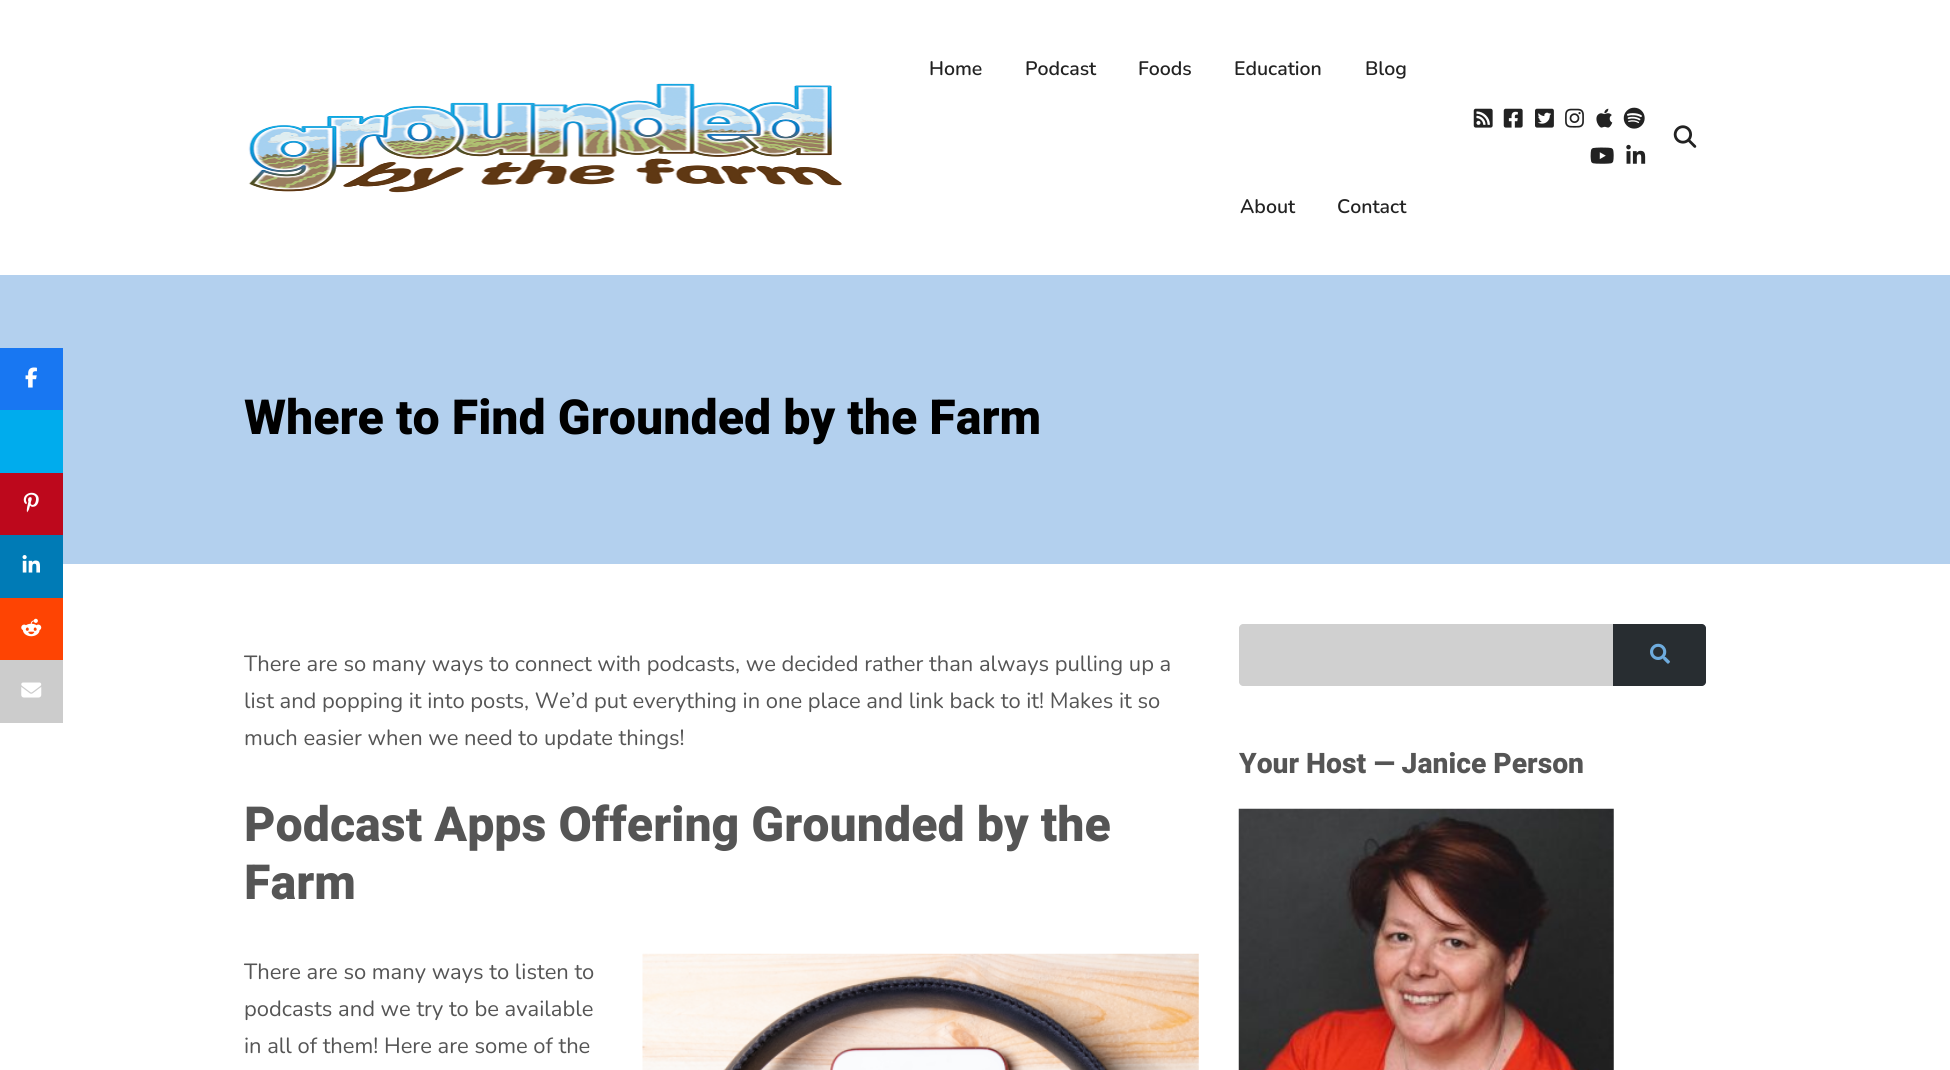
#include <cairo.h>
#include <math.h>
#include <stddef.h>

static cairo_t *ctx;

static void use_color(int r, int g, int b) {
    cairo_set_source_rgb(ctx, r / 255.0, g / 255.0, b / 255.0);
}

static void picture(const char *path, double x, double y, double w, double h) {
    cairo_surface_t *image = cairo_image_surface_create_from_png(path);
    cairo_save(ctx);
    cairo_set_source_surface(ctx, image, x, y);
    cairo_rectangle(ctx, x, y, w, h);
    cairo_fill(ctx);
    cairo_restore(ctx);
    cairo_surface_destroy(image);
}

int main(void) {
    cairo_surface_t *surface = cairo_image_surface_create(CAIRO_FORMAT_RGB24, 1950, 1070);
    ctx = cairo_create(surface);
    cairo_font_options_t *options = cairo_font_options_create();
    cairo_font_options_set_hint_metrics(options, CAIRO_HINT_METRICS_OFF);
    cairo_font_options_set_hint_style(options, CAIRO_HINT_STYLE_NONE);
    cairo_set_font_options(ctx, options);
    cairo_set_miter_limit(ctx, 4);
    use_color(255, 255, 255);
    cairo_paint(ctx);
    use_color(179, 208, 238);
    cairo_rectangle(ctx, 0, 275, 1950, 289);
    cairo_fill(ctx);
    use_color(24, 119, 242);
    cairo_rectangle(ctx, 0, 348, 63, 62);
    cairo_fill(ctx);
    picture("img1.png", 25, 367, 12, 21);
    use_color(0, 172, 237);
    cairo_rectangle(ctx, 0, 410, 63, 63);
    cairo_fill(ctx);
    use_color(189, 8, 28);
    cairo_rectangle(ctx, 0, 473, 63, 62);
    cairo_fill(ctx);
    picture("img2.png", 23, 492, 16, 21);
    use_color(0, 123, 182);
    cairo_rectangle(ctx, 0, 535, 63, 63);
    cairo_fill(ctx);
    picture("img3.png", 22, 555, 18, 18);
    use_color(254, 68, 3);
    cairo_rectangle(ctx, 0, 598, 63, 62);
    cairo_fill(ctx);
    picture("img4.png", 21, 618, 21, 19);
    use_color(204, 204, 204);
    cairo_rectangle(ctx, 0, 660, 63, 63);
    cairo_fill(ctx);
    picture("img5.png", 21, 682, 21, 16);
    picture("img6.png", 248, 83, 594, 110);
    cairo_select_font_face(ctx, "Nunito SemiBold", CAIRO_FONT_SLANT_NORMAL, CAIRO_FONT_WEIGHT_NORMAL);
    cairo_set_font_size(ctx, 19.5);
    use_color(34, 34, 34);
    cairo_move_to(ctx, 929, 75);
    cairo_show_text(ctx, "Home");
    cairo_move_to(ctx, 1025, 75);
    cairo_show_text(ctx, "Podcast");
    cairo_move_to(ctx, 1138, 75);
    cairo_show_text(ctx, "Foods");
    cairo_move_to(ctx, 1234, 75);
    cairo_show_text(ctx, "Education");
    cairo_move_to(ctx, 1365, 75);
    cairo_show_text(ctx, "Blog");
    cairo_move_to(ctx, 1240, 213);
    cairo_show_text(ctx, "About");
    cairo_move_to(ctx, 1337, 213);
    cairo_show_text(ctx, "Contact");
    picture("img7.png", 1473, 108, 20, 20);
    picture("img8.png", 1503, 108, 20, 20);
    picture("img9.png", 1535, 108, 19, 20);
    picture("img10.png", 1565, 108, 19, 20);
    picture("img11.png", 1596, 108, 17, 20);
    picture("img12.png", 1623, 107, 22, 22);
    picture("img13.png", 1590, 147, 24, 17);
    picture("img14.png", 1626, 144, 20, 20);
    picture("img15.png", 1673, 125, 24, 23);
    cairo_select_font_face(ctx, "Heebo ExtraBold", CAIRO_FONT_SLANT_NORMAL, CAIRO_FONT_WEIGHT_NORMAL);
    cairo_set_font_size(ctx, 48.3);
    use_color(0, 0, 0);
    cairo_move_to(ctx, 244, 434);
    cairo_show_text(ctx, "Where to Find Grounded by the Farm");
    cairo_select_font_face(ctx, "Nunito", CAIRO_FONT_SLANT_NORMAL, CAIRO_FONT_WEIGHT_NORMAL);
    cairo_set_font_size(ctx, 21.95);
    use_color(85, 85, 85);
    cairo_move_to(ctx, 244, 671);
    cairo_show_text(ctx, "There are so many ways to connect with podcasts, we decided rather than always pulling up a");
    cairo_move_to(ctx, 244, 708);
    cairo_show_text(ctx, "list and popping it into posts, We’d put everything in one place and link back to it! Makes it so");
    cairo_move_to(ctx, 244, 745);
    cairo_show_text(ctx, "much easier when we need to update things!");
    cairo_select_font_face(ctx, "Heebo ExtraBold", CAIRO_FONT_SLANT_NORMAL, CAIRO_FONT_WEIGHT_NORMAL);
    cairo_set_font_size(ctx, 48.3);
    cairo_move_to(ctx, 244, 841);
    cairo_show_text(ctx, "Podcast Apps Offering Grounded by the");
    cairo_move_to(ctx, 244, 899);
    cairo_show_text(ctx, "Farm");
    cairo_select_font_face(ctx, "Nunito", CAIRO_FONT_SLANT_NORMAL, CAIRO_FONT_WEIGHT_NORMAL);
    cairo_set_font_size(ctx, 21.95);
    cairo_move_to(ctx, 244, 979);
    cairo_show_text(ctx, "There are so many ways to listen to");
    picture("img16.png", 642, 953, 557, 117);
    cairo_move_to(ctx, 244, 1016);
    cairo_show_text(ctx, "podcasts and we try to be available");
    cairo_move_to(ctx, 244, 1053);
    cairo_show_text(ctx, "in all of them! Here are some of the");
    use_color(208, 208, 208);
    cairo_new_path(ctx);
    cairo_move_to(ctx, 1243, 624);
    cairo_line_to(ctx, 1613, 624);
    cairo_line_to(ctx, 1613, 686);
    cairo_line_to(ctx, 1243, 686);
    cairo_curve_to(ctx, 1241, 686, 1239, 684, 1239, 682);
    cairo_line_to(ctx, 1239, 628);
    cairo_curve_to(ctx, 1239, 626, 1241, 624, 1243, 624);
    cairo_close_path(ctx);
    cairo_fill(ctx);
    use_color(40, 45, 49);
    cairo_new_path(ctx);
    cairo_move_to(ctx, 1613, 624);
    cairo_line_to(ctx, 1702, 624);
    cairo_curve_to(ctx, 1704, 624, 1706, 626, 1706, 628);
    cairo_line_to(ctx, 1706, 682);
    cairo_curve_to(ctx, 1706, 684, 1704, 686, 1702, 686);
    cairo_line_to(ctx, 1613, 686);
    cairo_close_path(ctx);
    cairo_fill(ctx);
    picture("img17.png", 1650, 643, 20, 21);
    cairo_select_font_face(ctx, "Heebo ExtraBold", CAIRO_FONT_SLANT_NORMAL, CAIRO_FONT_WEIGHT_NORMAL);
    cairo_set_font_size(ctx, 28.25);
    use_color(85, 85, 85);
    cairo_move_to(ctx, 1239, 773);
    cairo_show_text(ctx, "Your Host — Janice Person");
    picture("img18.png", 1238, 808, 376, 262);
    cairo_surface_write_to_png(surface, "result.png");
    cairo_font_options_destroy(options);
    cairo_destroy(ctx);
    cairo_surface_destroy(surface);
    return 0;
}
